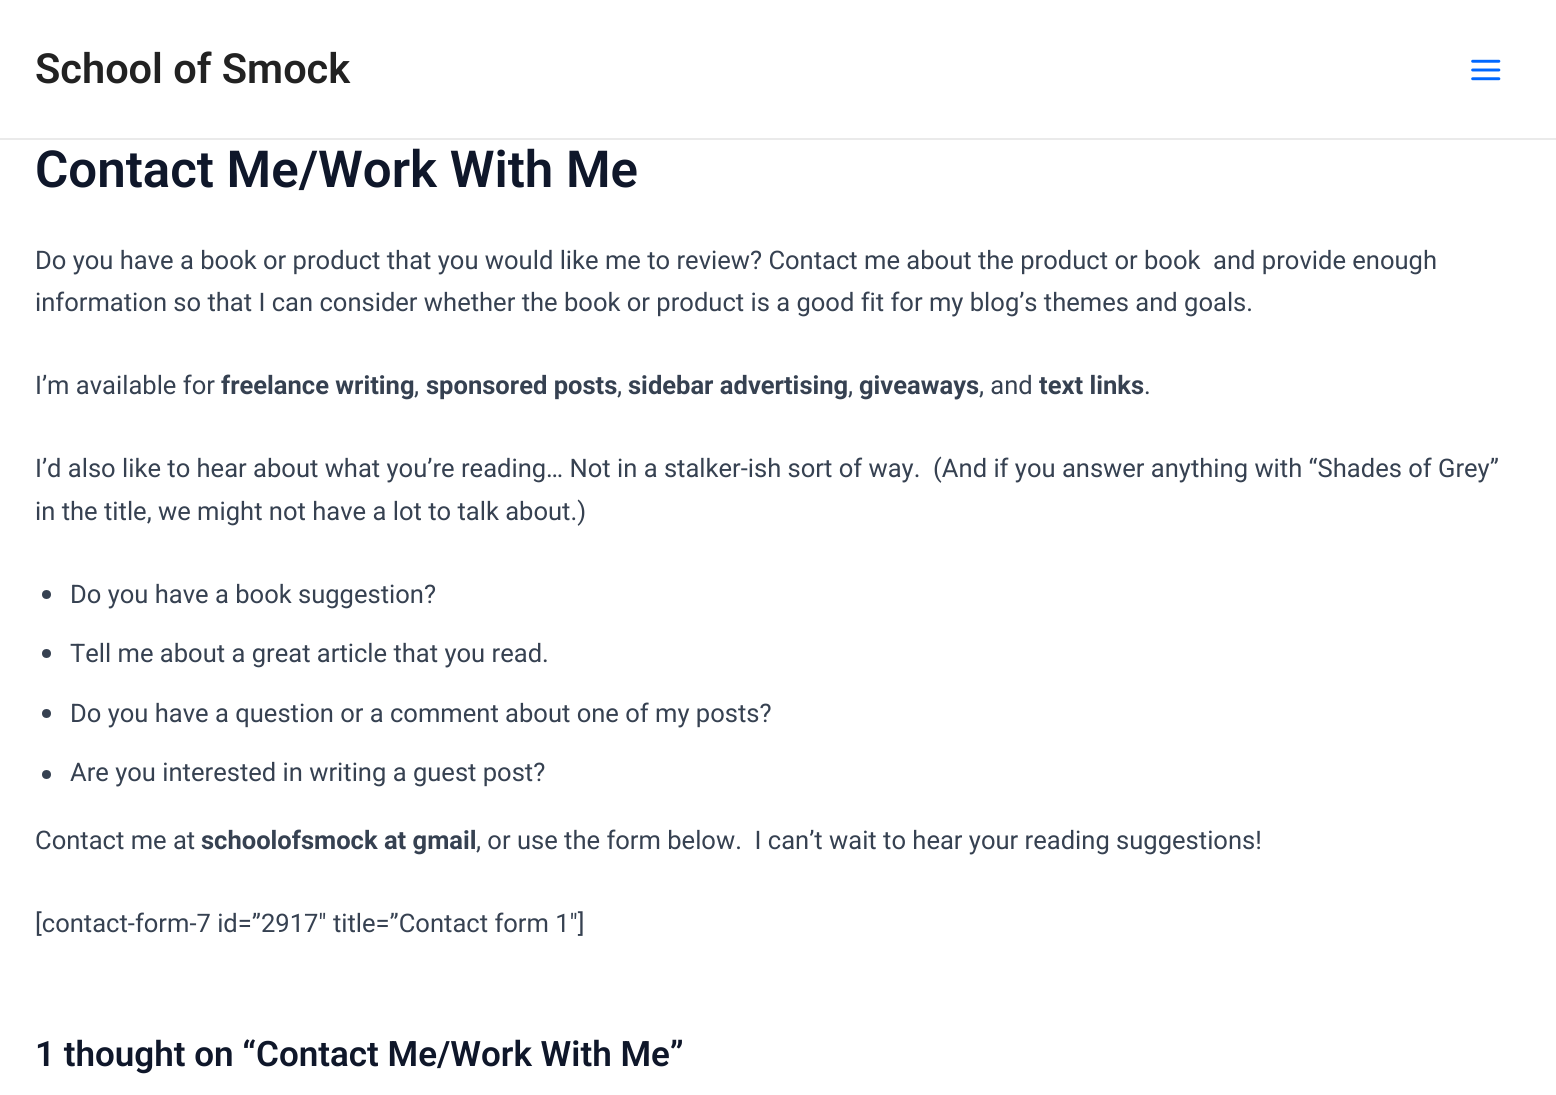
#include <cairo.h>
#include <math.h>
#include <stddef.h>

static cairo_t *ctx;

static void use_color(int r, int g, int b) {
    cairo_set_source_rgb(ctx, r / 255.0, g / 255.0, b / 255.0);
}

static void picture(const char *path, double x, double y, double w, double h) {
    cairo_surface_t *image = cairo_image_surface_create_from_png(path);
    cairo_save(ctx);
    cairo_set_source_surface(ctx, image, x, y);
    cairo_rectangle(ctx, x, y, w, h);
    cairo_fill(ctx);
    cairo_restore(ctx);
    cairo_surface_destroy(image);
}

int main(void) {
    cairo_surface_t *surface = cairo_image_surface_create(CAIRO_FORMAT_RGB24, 1556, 1095);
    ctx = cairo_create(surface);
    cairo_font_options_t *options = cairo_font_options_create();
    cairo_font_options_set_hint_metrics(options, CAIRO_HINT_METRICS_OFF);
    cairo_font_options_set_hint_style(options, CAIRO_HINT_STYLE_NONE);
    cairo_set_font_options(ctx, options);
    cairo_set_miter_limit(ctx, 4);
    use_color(255, 255, 255);
    cairo_paint(ctx);
    use_color(234, 234, 234);
    cairo_rectangle(ctx, 0, 138, 1556, 2);
    cairo_fill(ctx);
    cairo_select_font_face(ctx, "Roboto SemiBold", CAIRO_FONT_SLANT_NORMAL, CAIRO_FONT_WEIGHT_NORMAL);
    cairo_set_font_size(ctx, 41.5);
    use_color(34, 34, 34);
    cairo_move_to(ctx, 35, 83);
    cairo_show_text(ctx, "School of Smock");
    picture("img1.png", 1471, 59, 30, 22);
    cairo_set_font_size(ctx, 51);
    use_color(15, 23, 42);
    cairo_move_to(ctx, 35, 187);
    cairo_show_text(ctx, "Contact Me/Work With Me");
    cairo_select_font_face(ctx, "Roboto", CAIRO_FONT_SLANT_NORMAL, CAIRO_FONT_WEIGHT_NORMAL);
    cairo_set_font_size(ctx, 25.55);
    use_color(54, 65, 81);
    cairo_move_to(ctx, 35, 269);
    cairo_show_text(ctx, "Do you have a book or product that you would like me to review? Contact me about the product or book  and provide enough");
    cairo_move_to(ctx, 35, 311);
    cairo_show_text(ctx, "information so that I can consider whether the book or product is a good fit for my blog’s themes and goals.");
    cairo_move_to(ctx, 35, 394);
    cairo_show_text(ctx, "I’m available for");
    cairo_select_font_face(ctx, "Roboto", CAIRO_FONT_SLANT_NORMAL, CAIRO_FONT_WEIGHT_BOLD);
    cairo_move_to(ctx, 221, 394);
    cairo_show_text(ctx, "freelance writing");
    cairo_select_font_face(ctx, "Roboto", CAIRO_FONT_SLANT_NORMAL, CAIRO_FONT_WEIGHT_NORMAL);
    cairo_move_to(ctx, 414, 394);
    cairo_show_text(ctx, ",");
    cairo_select_font_face(ctx, "Roboto", CAIRO_FONT_SLANT_NORMAL, CAIRO_FONT_WEIGHT_BOLD);
    cairo_move_to(ctx, 426, 394);
    cairo_show_text(ctx, "sponsored posts");
    cairo_select_font_face(ctx, "Roboto", CAIRO_FONT_SLANT_NORMAL, CAIRO_FONT_WEIGHT_NORMAL);
    cairo_move_to(ctx, 617, 394);
    cairo_show_text(ctx, ",");
    cairo_select_font_face(ctx, "Roboto", CAIRO_FONT_SLANT_NORMAL, CAIRO_FONT_WEIGHT_BOLD);
    cairo_move_to(ctx, 628, 394);
    cairo_show_text(ctx, "sidebar advertising");
    cairo_select_font_face(ctx, "Roboto", CAIRO_FONT_SLANT_NORMAL, CAIRO_FONT_WEIGHT_NORMAL);
    cairo_move_to(ctx, 848, 394);
    cairo_show_text(ctx, ",");
    cairo_select_font_face(ctx, "Roboto", CAIRO_FONT_SLANT_NORMAL, CAIRO_FONT_WEIGHT_BOLD);
    cairo_move_to(ctx, 859, 394);
    cairo_show_text(ctx, "giveaways");
    cairo_select_font_face(ctx, "Roboto", CAIRO_FONT_SLANT_NORMAL, CAIRO_FONT_WEIGHT_NORMAL);
    cairo_move_to(ctx, 979, 394);
    cairo_show_text(ctx, ", and");
    cairo_select_font_face(ctx, "Roboto", CAIRO_FONT_SLANT_NORMAL, CAIRO_FONT_WEIGHT_BOLD);
    cairo_move_to(ctx, 1039, 394);
    cairo_show_text(ctx, "text links");
    cairo_select_font_face(ctx, "Roboto", CAIRO_FONT_SLANT_NORMAL, CAIRO_FONT_WEIGHT_NORMAL);
    cairo_move_to(ctx, 1144, 394);
    cairo_show_text(ctx, ".");
    cairo_move_to(ctx, 35, 477);
    cairo_show_text(ctx, "I’d also like to hear about what you’re reading… Not in a stalker-ish sort of way.  (And if you answer anything with “Shades of Grey”");
    cairo_move_to(ctx, 35, 520);
    cairo_show_text(ctx, "in the title, we might not have a lot to talk about.)");
    cairo_new_path(ctx);
    cairo_arc(ctx, 46.5, 594.5, 4.5, 0, 2 * M_PI);
    cairo_fill(ctx);
    cairo_move_to(ctx, 70, 603);
    cairo_show_text(ctx, "Do you have a book suggestion?");
    cairo_new_path(ctx);
    cairo_arc(ctx, 46.5, 653.5, 4.5, 0, 2 * M_PI);
    cairo_fill(ctx);
    cairo_move_to(ctx, 70, 662);
    cairo_show_text(ctx, "Tell me about a great article that you read.");
    cairo_new_path(ctx);
    cairo_arc(ctx, 46.5, 713.5, 4.5, 0, 2 * M_PI);
    cairo_fill(ctx);
    cairo_move_to(ctx, 70, 722);
    cairo_show_text(ctx, "Do you have a question or a comment about one of my posts?");
    cairo_new_path(ctx);
    cairo_arc(ctx, 46.5, 774.5, 4.5, 0, 2 * M_PI);
    cairo_fill(ctx);
    cairo_move_to(ctx, 70, 781);
    cairo_show_text(ctx, "Are you interested in writing a guest post?");
    cairo_move_to(ctx, 35, 849);
    cairo_show_text(ctx, "Contact me at");
    cairo_select_font_face(ctx, "Roboto", CAIRO_FONT_SLANT_NORMAL, CAIRO_FONT_WEIGHT_BOLD);
    cairo_move_to(ctx, 201, 849);
    cairo_show_text(ctx, "schoolofsmock at gmail");
    cairo_select_font_face(ctx, "Roboto", CAIRO_FONT_SLANT_NORMAL, CAIRO_FONT_WEIGHT_NORMAL);
    cairo_move_to(ctx, 476, 849);
    cairo_show_text(ctx, ", or use the form below.  I can’t wait to hear your reading suggestions!");
    cairo_move_to(ctx, 35, 932);
    cairo_show_text(ctx, "[contact-form-7 id=”2917″ title=”Contact form 1″]");
    cairo_select_font_face(ctx, "Roboto SemiBold", CAIRO_FONT_SLANT_NORMAL, CAIRO_FONT_WEIGHT_NORMAL);
    cairo_set_font_size(ctx, 35);
    use_color(15, 23, 42);
    cairo_move_to(ctx, 35, 1066);
    cairo_show_text(ctx, "1 thought on “Contact Me/Work With Me”");
    cairo_surface_write_to_png(surface, "result.png");
    cairo_font_options_destroy(options);
    cairo_destroy(ctx);
    cairo_surface_destroy(surface);
    return 0;
}
